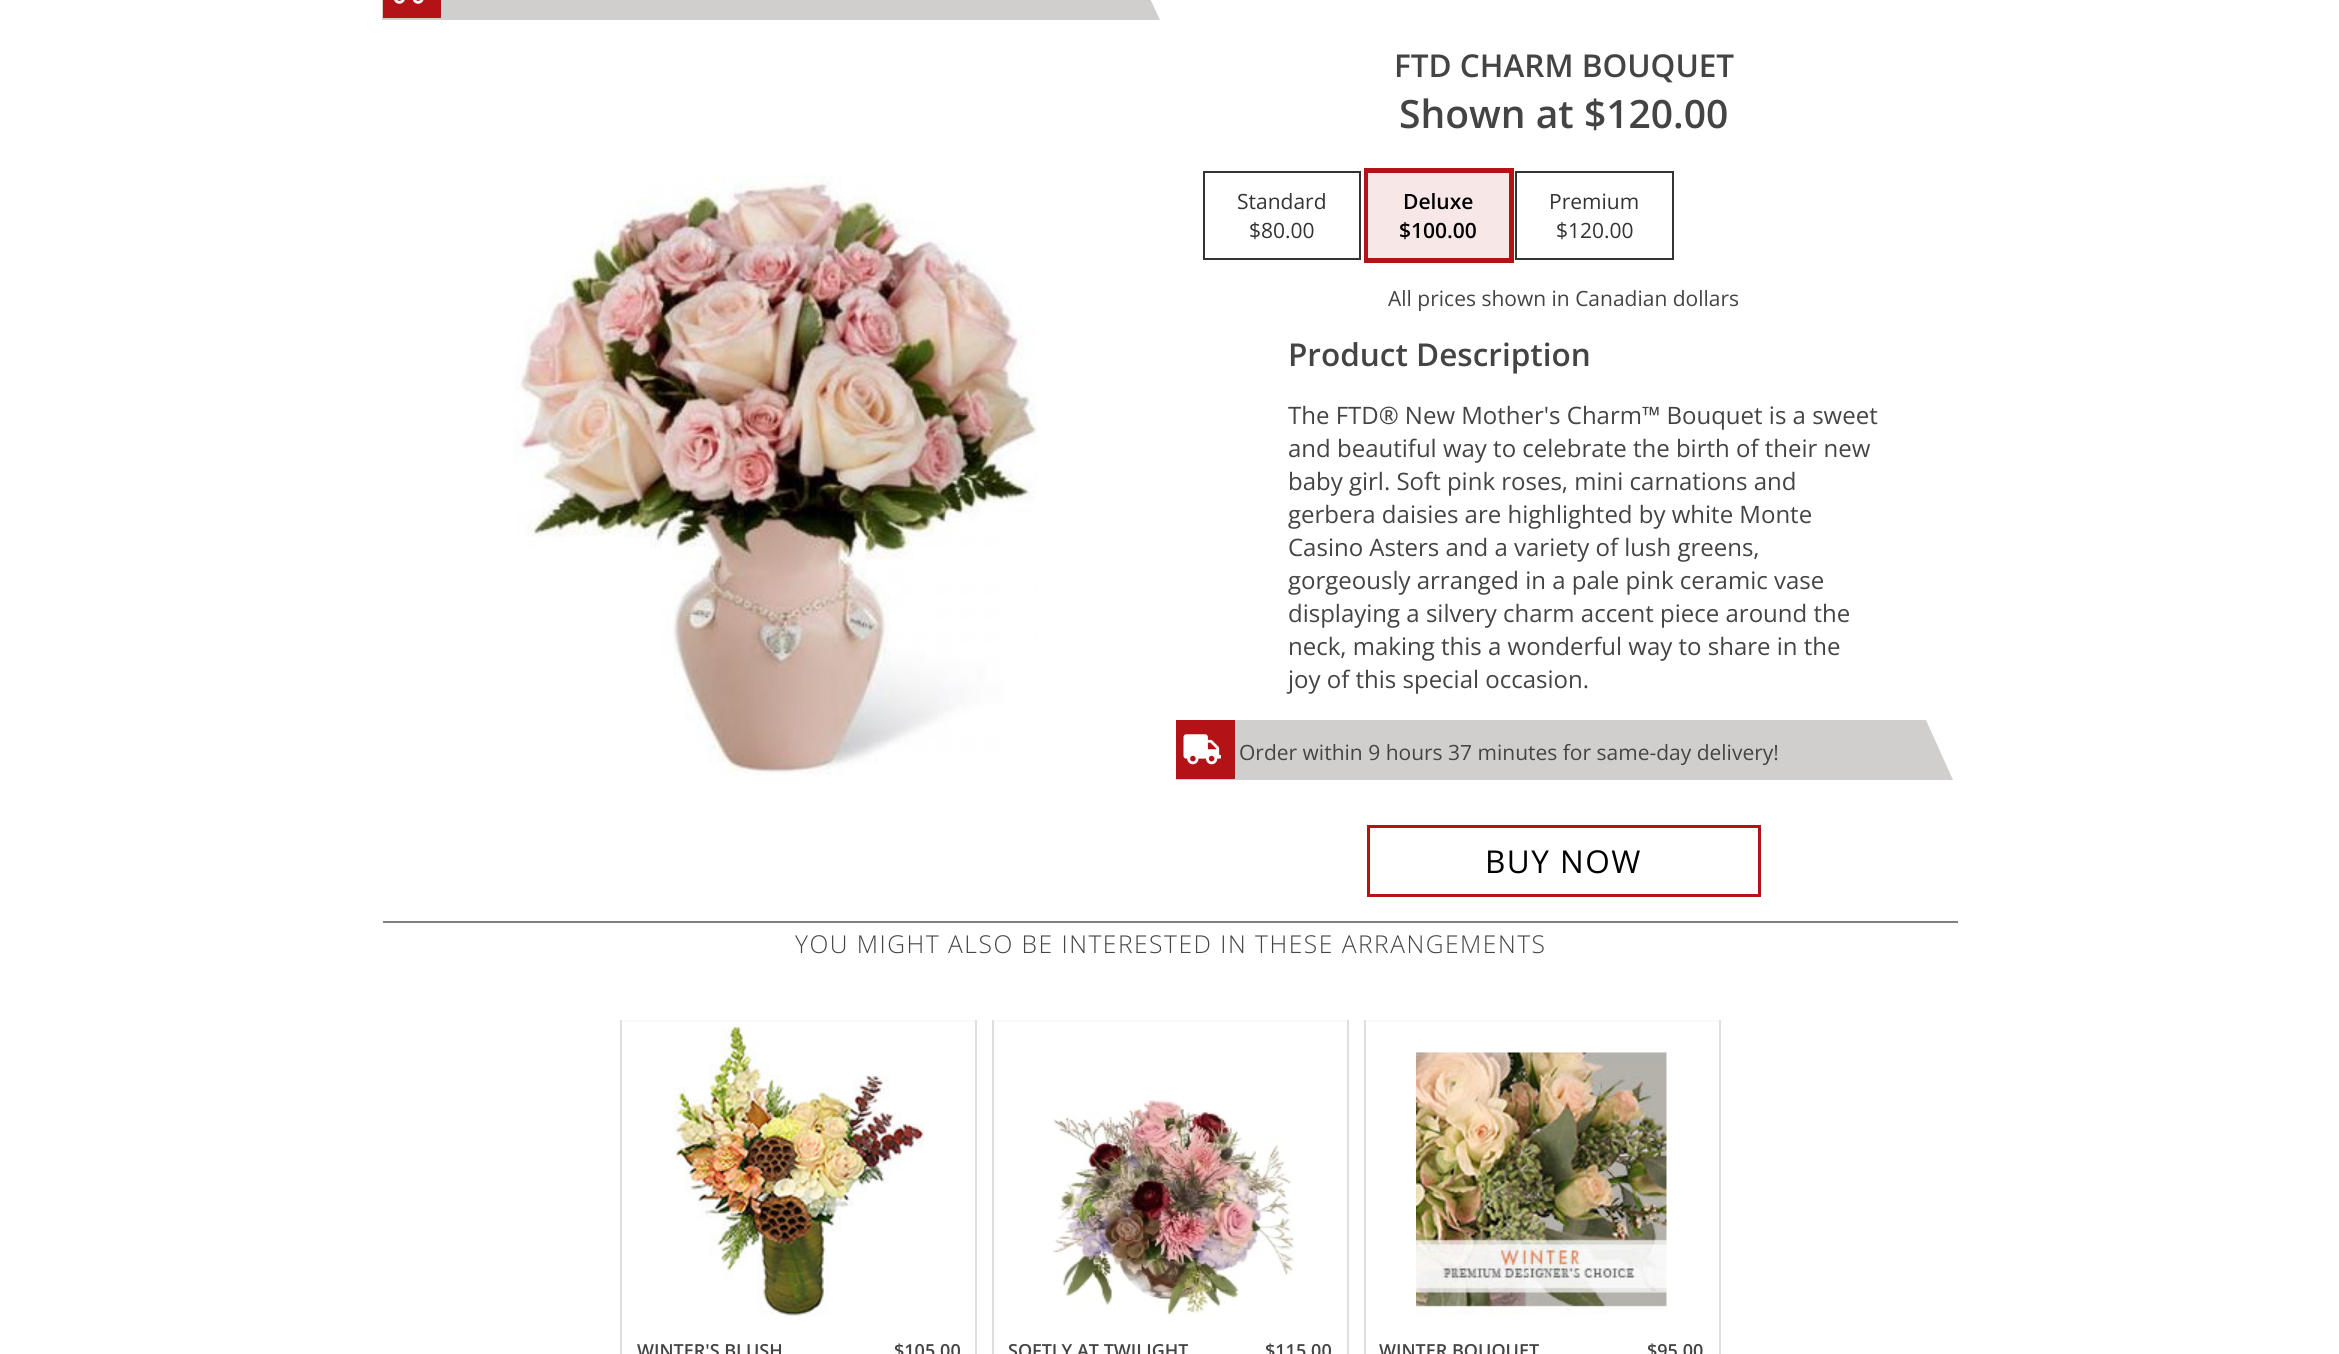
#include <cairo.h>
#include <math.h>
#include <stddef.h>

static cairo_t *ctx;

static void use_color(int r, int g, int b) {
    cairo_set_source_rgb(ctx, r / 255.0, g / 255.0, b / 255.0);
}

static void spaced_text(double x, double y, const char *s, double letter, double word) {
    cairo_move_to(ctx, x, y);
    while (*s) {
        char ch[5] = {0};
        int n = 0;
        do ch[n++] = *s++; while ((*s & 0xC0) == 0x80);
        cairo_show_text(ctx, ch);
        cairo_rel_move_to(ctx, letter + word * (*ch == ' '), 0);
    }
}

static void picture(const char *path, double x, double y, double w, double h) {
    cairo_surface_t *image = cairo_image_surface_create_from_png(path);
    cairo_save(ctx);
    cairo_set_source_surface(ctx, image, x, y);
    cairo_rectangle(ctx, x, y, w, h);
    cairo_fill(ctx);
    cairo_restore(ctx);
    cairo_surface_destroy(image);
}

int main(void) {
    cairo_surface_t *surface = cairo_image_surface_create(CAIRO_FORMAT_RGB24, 2339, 1354);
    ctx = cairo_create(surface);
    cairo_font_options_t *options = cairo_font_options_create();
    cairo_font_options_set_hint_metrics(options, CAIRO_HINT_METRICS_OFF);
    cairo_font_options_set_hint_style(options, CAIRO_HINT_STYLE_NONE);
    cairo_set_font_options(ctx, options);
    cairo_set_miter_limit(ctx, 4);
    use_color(255, 255, 255);
    cairo_paint(ctx);
    use_color(208, 207, 205);
    cairo_new_path(ctx);
    cairo_move_to(ctx, 1160, 20);
    cairo_line_to(ctx, 382, 20);
    cairo_line_to(ctx, 382, -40);
    cairo_line_to(ctx, 1132, -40);
    cairo_close_path(ctx);
    cairo_fill(ctx);
    use_color(179, 19, 23);
    cairo_rectangle(ctx, 383, 0, 58, 18);
    cairo_fill(ctx);
    picture("img1.png", 394, 0, 30, 4);
    picture("img2.png", 513, 175, 524, 601);
    cairo_select_font_face(ctx, "Open Sans SemiBold", CAIRO_FONT_SLANT_NORMAL, CAIRO_FONT_WEIGHT_NORMAL);
    cairo_set_font_size(ctx, 31.5);
    use_color(68, 68, 68);
    cairo_move_to(ctx, 1394, 77);
    cairo_show_text(ctx, "FTD CHARM BOUQUET");
    cairo_set_font_size(ctx, 39);
    cairo_move_to(ctx, 1399, 128);
    cairo_show_text(ctx, "Shown at $120.00");
    cairo_rectangle(ctx, 1204, 172, 156, 87);
    use_color(51, 51, 51);
    cairo_stroke(ctx);
    cairo_select_font_face(ctx, "Open Sans", CAIRO_FONT_SLANT_NORMAL, CAIRO_FONT_WEIGHT_NORMAL);
    cairo_set_font_size(ctx, 21);
    cairo_move_to(ctx, 1237, 209);
    cairo_show_text(ctx, "Standard");
    cairo_move_to(ctx, 1249, 238);
    cairo_show_text(ctx, "$80.00");
    cairo_rectangle(ctx, 1366.5, 170.5, 145, 90);
    use_color(179, 19, 23);
    cairo_set_line_width(ctx, 5);
    cairo_stroke(ctx);
    use_color(247, 231, 231);
    cairo_rectangle(ctx, 1368, 173, 141, 85);
    cairo_fill(ctx);
    cairo_select_font_face(ctx, "Open Sans SemiBold", CAIRO_FONT_SLANT_NORMAL, CAIRO_FONT_WEIGHT_NORMAL);
    use_color(0, 0, 0);
    cairo_move_to(ctx, 1403, 209);
    cairo_show_text(ctx, "Deluxe");
    cairo_move_to(ctx, 1399, 238);
    cairo_show_text(ctx, "$100.00");
    cairo_rectangle(ctx, 1516, 172, 157, 87);
    use_color(51, 51, 51);
    cairo_set_line_width(ctx, 2);
    cairo_stroke(ctx);
    cairo_select_font_face(ctx, "Open Sans", CAIRO_FONT_SLANT_NORMAL, CAIRO_FONT_WEIGHT_NORMAL);
    cairo_move_to(ctx, 1549, 209);
    cairo_show_text(ctx, "Premium");
    cairo_move_to(ctx, 1556, 238);
    cairo_show_text(ctx, "$120.00");
    use_color(68, 68, 68);
    cairo_move_to(ctx, 1388, 306);
    cairo_show_text(ctx, "All prices shown in Canadian dollars");
    cairo_select_font_face(ctx, "Open Sans SemiBold", CAIRO_FONT_SLANT_NORMAL, CAIRO_FONT_WEIGHT_NORMAL);
    cairo_set_font_size(ctx, 31.5);
    cairo_move_to(ctx, 1288, 366);
    cairo_show_text(ctx, "Product Description");
    cairo_select_font_face(ctx, "Open Sans", CAIRO_FONT_SLANT_NORMAL, CAIRO_FONT_WEIGHT_NORMAL);
    cairo_set_font_size(ctx, 24);
    cairo_move_to(ctx, 1288, 424);
    cairo_show_text(ctx, "The FTD® New Mother's Charm™ Bouquet is a sweet");
    cairo_move_to(ctx, 1288, 457);
    cairo_show_text(ctx, "and beautiful way to celebrate the birth of their new");
    cairo_move_to(ctx, 1288, 490);
    cairo_show_text(ctx, "baby girl. Soft pink roses, mini carnations and");
    cairo_move_to(ctx, 1288, 523);
    cairo_show_text(ctx, "gerbera daisies are highlighted by white Monte");
    cairo_move_to(ctx, 1288, 556);
    cairo_show_text(ctx, "Casino Asters and a variety of lush greens,");
    cairo_move_to(ctx, 1288, 589);
    cairo_show_text(ctx, "gorgeously arranged in a pale pink ceramic vase");
    cairo_move_to(ctx, 1288, 622);
    cairo_show_text(ctx, "displaying a silvery charm accent piece around the");
    cairo_move_to(ctx, 1288, 655);
    cairo_show_text(ctx, "neck, making this a wonderful way to share in the");
    cairo_move_to(ctx, 1288, 688);
    cairo_show_text(ctx, "joy of this special occasion.");
    use_color(208, 207, 205);
    cairo_new_path(ctx);
    cairo_move_to(ctx, 1953, 780);
    cairo_line_to(ctx, 1176, 780);
    cairo_line_to(ctx, 1176, 720);
    cairo_line_to(ctx, 1926, 720);
    cairo_close_path(ctx);
    cairo_fill(ctx);
    use_color(179, 19, 23);
    cairo_rectangle(ctx, 1176, 720, 59, 59);
    cairo_fill(ctx);
    picture("img3.png", 1183, 734, 38, 31);
    cairo_set_font_size(ctx, 21);
    use_color(68, 68, 68);
    cairo_move_to(ctx, 1239, 760);
    cairo_show_text(ctx, "Order within 9 hours 37 minutes for same-day delivery!");
    cairo_rectangle(ctx, 1368.5, 826.5, 391, 69);
    use_color(179, 19, 23);
    cairo_set_line_width(ctx, 3);
    cairo_stroke(ctx);
    cairo_set_font_size(ctx, 31.5);
    use_color(0, 0, 0);
    spaced_text(1485, 873, "BUY NOW", 1.5, 0);
    use_color(128, 128, 128);
    cairo_rectangle(ctx, 383, 921, 1575, 2);
    cairo_fill(ctx);
    cairo_select_font_face(ctx, "Open Sans Light", CAIRO_FONT_SLANT_NORMAL, CAIRO_FONT_WEIGHT_NORMAL);
    cairo_set_font_size(ctx, 24.6);
    use_color(68, 68, 68);
    spaced_text(795, 953, "YOU MIGHT ALSO BE INTERESTED IN THESE ARRANGEMENTS", 1.5, 0);
    use_color(249, 249, 249);
    cairo_rectangle(ctx, 620, 1020, 357, 2);
    cairo_fill(ctx);
    use_color(226, 222, 221);
    cairo_rectangle(ctx, 975, 1020, 2, 334);
    cairo_fill(ctx);
    cairo_rectangle(ctx, 620, 1020, 2, 334);
    cairo_fill(ctx);
    picture("img4.png", 673, 1027, 251, 289);
    cairo_select_font_face(ctx, "Open Sans SemiBold", CAIRO_FONT_SLANT_NORMAL, CAIRO_FONT_WEIGHT_NORMAL);
    cairo_set_font_size(ctx, 18);
    use_color(68, 68, 68);
    cairo_move_to(ctx, 637, 1357);
    cairo_show_text(ctx, "WINTER'S BLUSH");
    cairo_move_to(ctx, 894, 1357);
    cairo_show_text(ctx, "$105.00");
    use_color(249, 249, 249);
    cairo_rectangle(ctx, 992, 1020, 357, 2);
    cairo_fill(ctx);
    use_color(226, 222, 221);
    cairo_rectangle(ctx, 1347, 1020, 2, 334);
    cairo_fill(ctx);
    cairo_rectangle(ctx, 992, 1020, 2, 334);
    cairo_fill(ctx);
    picture("img5.png", 1052, 1100, 243, 216);
    use_color(68, 68, 68);
    cairo_move_to(ctx, 1008, 1357);
    cairo_show_text(ctx, "SOFTLY AT TWILIGHT");
    cairo_move_to(ctx, 1265, 1357);
    cairo_show_text(ctx, "$115.00");
    use_color(249, 249, 249);
    cairo_rectangle(ctx, 1364, 1020, 357, 2);
    cairo_fill(ctx);
    use_color(226, 222, 221);
    cairo_rectangle(ctx, 1719, 1020, 2, 334);
    cairo_fill(ctx);
    cairo_rectangle(ctx, 1364, 1020, 2, 334);
    cairo_fill(ctx);
    picture("img6.png", 1416, 1051, 251, 264);
    use_color(68, 68, 68);
    cairo_move_to(ctx, 1379, 1357);
    cairo_show_text(ctx, "WINTER BOUQUET");
    cairo_move_to(ctx, 1647, 1357);
    cairo_show_text(ctx, "$95.00");
    cairo_surface_write_to_png(surface, "result.png");
    cairo_font_options_destroy(options);
    cairo_destroy(ctx);
    cairo_surface_destroy(surface);
    return 0;
}
